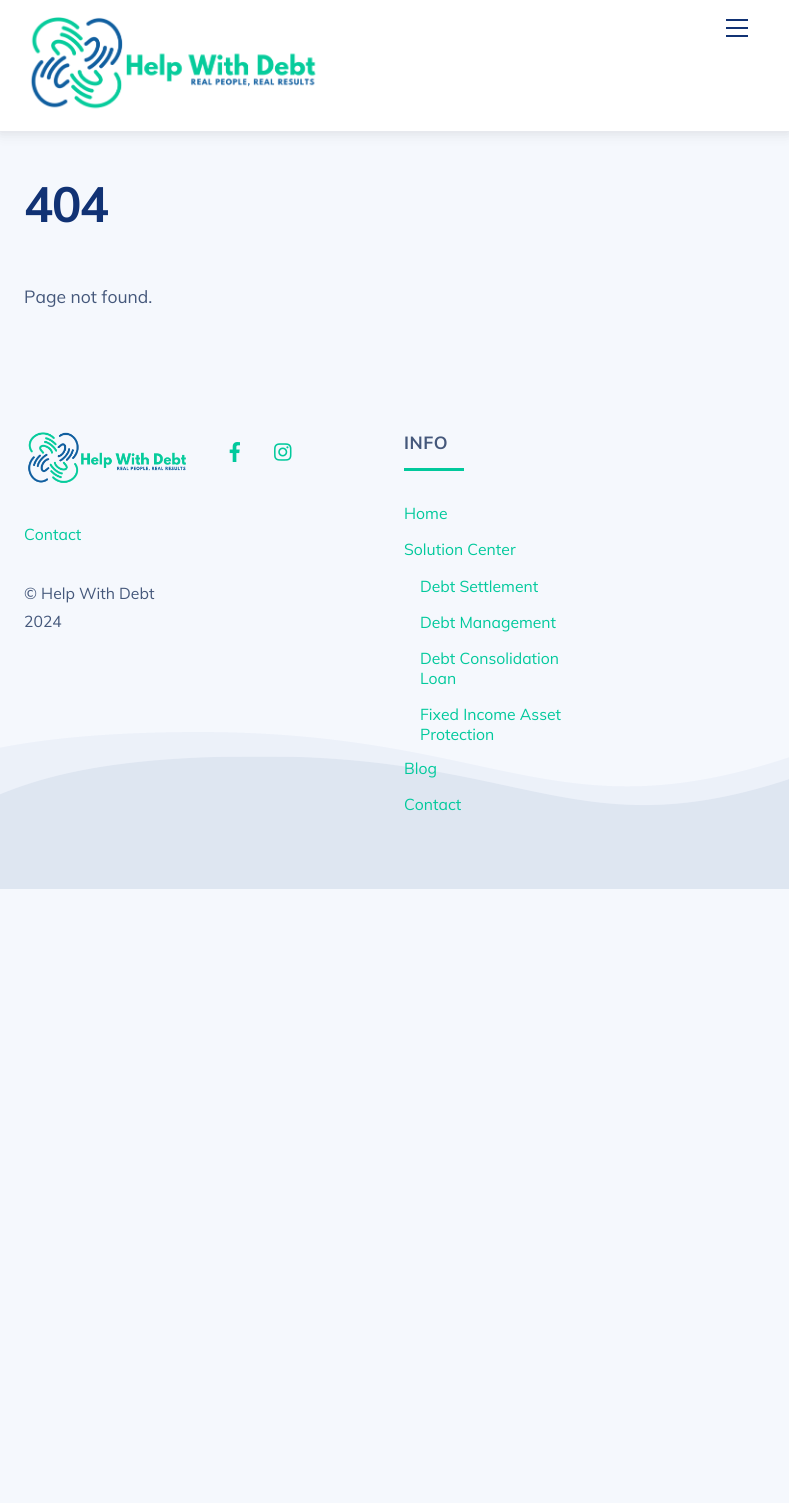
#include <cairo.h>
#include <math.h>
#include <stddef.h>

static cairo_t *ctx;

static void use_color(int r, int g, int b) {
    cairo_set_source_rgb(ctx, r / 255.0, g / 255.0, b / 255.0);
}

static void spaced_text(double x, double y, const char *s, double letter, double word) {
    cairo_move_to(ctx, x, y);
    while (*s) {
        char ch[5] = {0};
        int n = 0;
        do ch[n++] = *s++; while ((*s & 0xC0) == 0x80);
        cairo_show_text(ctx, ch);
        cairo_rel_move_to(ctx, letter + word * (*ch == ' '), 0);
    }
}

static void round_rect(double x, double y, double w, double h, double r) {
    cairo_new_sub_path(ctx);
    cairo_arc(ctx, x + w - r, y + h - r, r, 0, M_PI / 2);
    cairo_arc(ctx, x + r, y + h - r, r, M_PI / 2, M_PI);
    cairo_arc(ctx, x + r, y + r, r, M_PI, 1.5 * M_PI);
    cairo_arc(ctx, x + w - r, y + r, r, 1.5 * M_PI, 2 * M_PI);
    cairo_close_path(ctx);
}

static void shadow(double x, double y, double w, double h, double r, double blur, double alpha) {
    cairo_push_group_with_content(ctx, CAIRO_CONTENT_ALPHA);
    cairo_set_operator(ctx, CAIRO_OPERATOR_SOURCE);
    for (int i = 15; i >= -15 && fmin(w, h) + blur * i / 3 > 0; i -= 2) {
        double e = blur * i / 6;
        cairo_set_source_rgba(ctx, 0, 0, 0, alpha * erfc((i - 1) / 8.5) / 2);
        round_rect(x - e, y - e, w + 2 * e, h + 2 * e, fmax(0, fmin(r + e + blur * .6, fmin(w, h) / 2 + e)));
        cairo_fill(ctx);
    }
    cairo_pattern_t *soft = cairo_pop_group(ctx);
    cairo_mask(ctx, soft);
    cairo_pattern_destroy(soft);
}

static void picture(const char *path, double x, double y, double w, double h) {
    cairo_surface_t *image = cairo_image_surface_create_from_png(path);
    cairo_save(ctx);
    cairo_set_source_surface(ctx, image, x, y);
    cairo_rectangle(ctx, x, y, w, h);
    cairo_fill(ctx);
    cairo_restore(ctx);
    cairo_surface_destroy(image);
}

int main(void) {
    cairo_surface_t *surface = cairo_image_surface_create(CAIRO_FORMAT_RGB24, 789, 1503);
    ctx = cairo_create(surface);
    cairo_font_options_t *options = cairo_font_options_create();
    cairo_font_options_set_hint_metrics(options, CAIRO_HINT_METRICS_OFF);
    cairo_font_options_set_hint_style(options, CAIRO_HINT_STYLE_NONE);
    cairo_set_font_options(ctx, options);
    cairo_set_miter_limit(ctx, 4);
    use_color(245, 248, 253);
    cairo_paint(ctx);
    use_color(0, 0, 0);
    shadow(0, 1, 789, 131, 0, 7.5, 0.12);
    use_color(255, 255, 255);
    cairo_rectangle(ctx, 0, 0, 789, 131);
    cairo_fill(ctx);
    picture("img1.png", 30, 17, 286, 92);
    use_color(17, 50, 116);
    cairo_rectangle(ctx, 726, 35, 22, 2);
    cairo_fill(ctx);
    cairo_rectangle(ctx, 726, 19, 22, 2);
    cairo_fill(ctx);
    cairo_rectangle(ctx, 726, 27, 22, 2);
    cairo_fill(ctx);
    cairo_select_font_face(ctx, "Muli", CAIRO_FONT_SLANT_NORMAL, CAIRO_FONT_WEIGHT_BOLD);
    cairo_set_font_size(ctx, 49);
    spaced_text(24, 222, "404", -1.5, 0);
    cairo_select_font_face(ctx, "Muli", CAIRO_FONT_SLANT_NORMAL, CAIRO_FONT_WEIGHT_NORMAL);
    cairo_set_font_size(ctx, 17.5);
    use_color(69, 88, 123);
    cairo_move_to(ctx, 24, 303);
    cairo_show_text(ctx, "Page not found.");
    picture("img2.png", 0, 732, 789, 157);
    picture("img3.png", 28, 432, 158, 51);
    cairo_set_font_size(ctx, 15.75);
    use_color(1, 201, 156);
    cairo_move_to(ctx, 24, 540);
    cairo_show_text(ctx, "Contact");
    use_color(69, 88, 123);
    cairo_move_to(ctx, 24, 599);
    cairo_show_text(ctx, "© Help With Debt");
    cairo_move_to(ctx, 24, 627);
    cairo_show_text(ctx, "2024");
    picture("img4.png", 229, 442, 11, 20);
    picture("img5.png", 274, 443, 18, 18);
    cairo_select_font_face(ctx, "Muli", CAIRO_FONT_SLANT_NORMAL, CAIRO_FONT_WEIGHT_BOLD);
    cairo_set_font_size(ctx, 17.5);
    spaced_text(404, 449, "INFO", 0.5, 0);
    use_color(1, 201, 156);
    cairo_rectangle(ctx, 404, 468, 60, 3);
    cairo_fill(ctx);
    cairo_select_font_face(ctx, "Muli", CAIRO_FONT_SLANT_NORMAL, CAIRO_FONT_WEIGHT_NORMAL);
    cairo_set_font_size(ctx, 15.75);
    cairo_move_to(ctx, 404, 519);
    cairo_show_text(ctx, "Home");
    cairo_move_to(ctx, 404, 555);
    cairo_show_text(ctx, "Solution Center");
    cairo_move_to(ctx, 420, 592);
    cairo_show_text(ctx, "Debt Settlement");
    cairo_move_to(ctx, 420, 628);
    cairo_show_text(ctx, "Debt Management");
    cairo_move_to(ctx, 420, 664);
    cairo_show_text(ctx, "Debt Consolidation");
    cairo_move_to(ctx, 420, 684);
    cairo_show_text(ctx, "Loan");
    cairo_move_to(ctx, 420, 720);
    cairo_show_text(ctx, "Fixed Income Asset");
    cairo_move_to(ctx, 420, 740);
    cairo_show_text(ctx, "Protection");
    cairo_move_to(ctx, 404, 774);
    cairo_show_text(ctx, "Blog");
    cairo_move_to(ctx, 404, 810);
    cairo_show_text(ctx, "Contact");
    cairo_surface_write_to_png(surface, "result.png");
    cairo_font_options_destroy(options);
    cairo_destroy(ctx);
    cairo_surface_destroy(surface);
    return 0;
}
